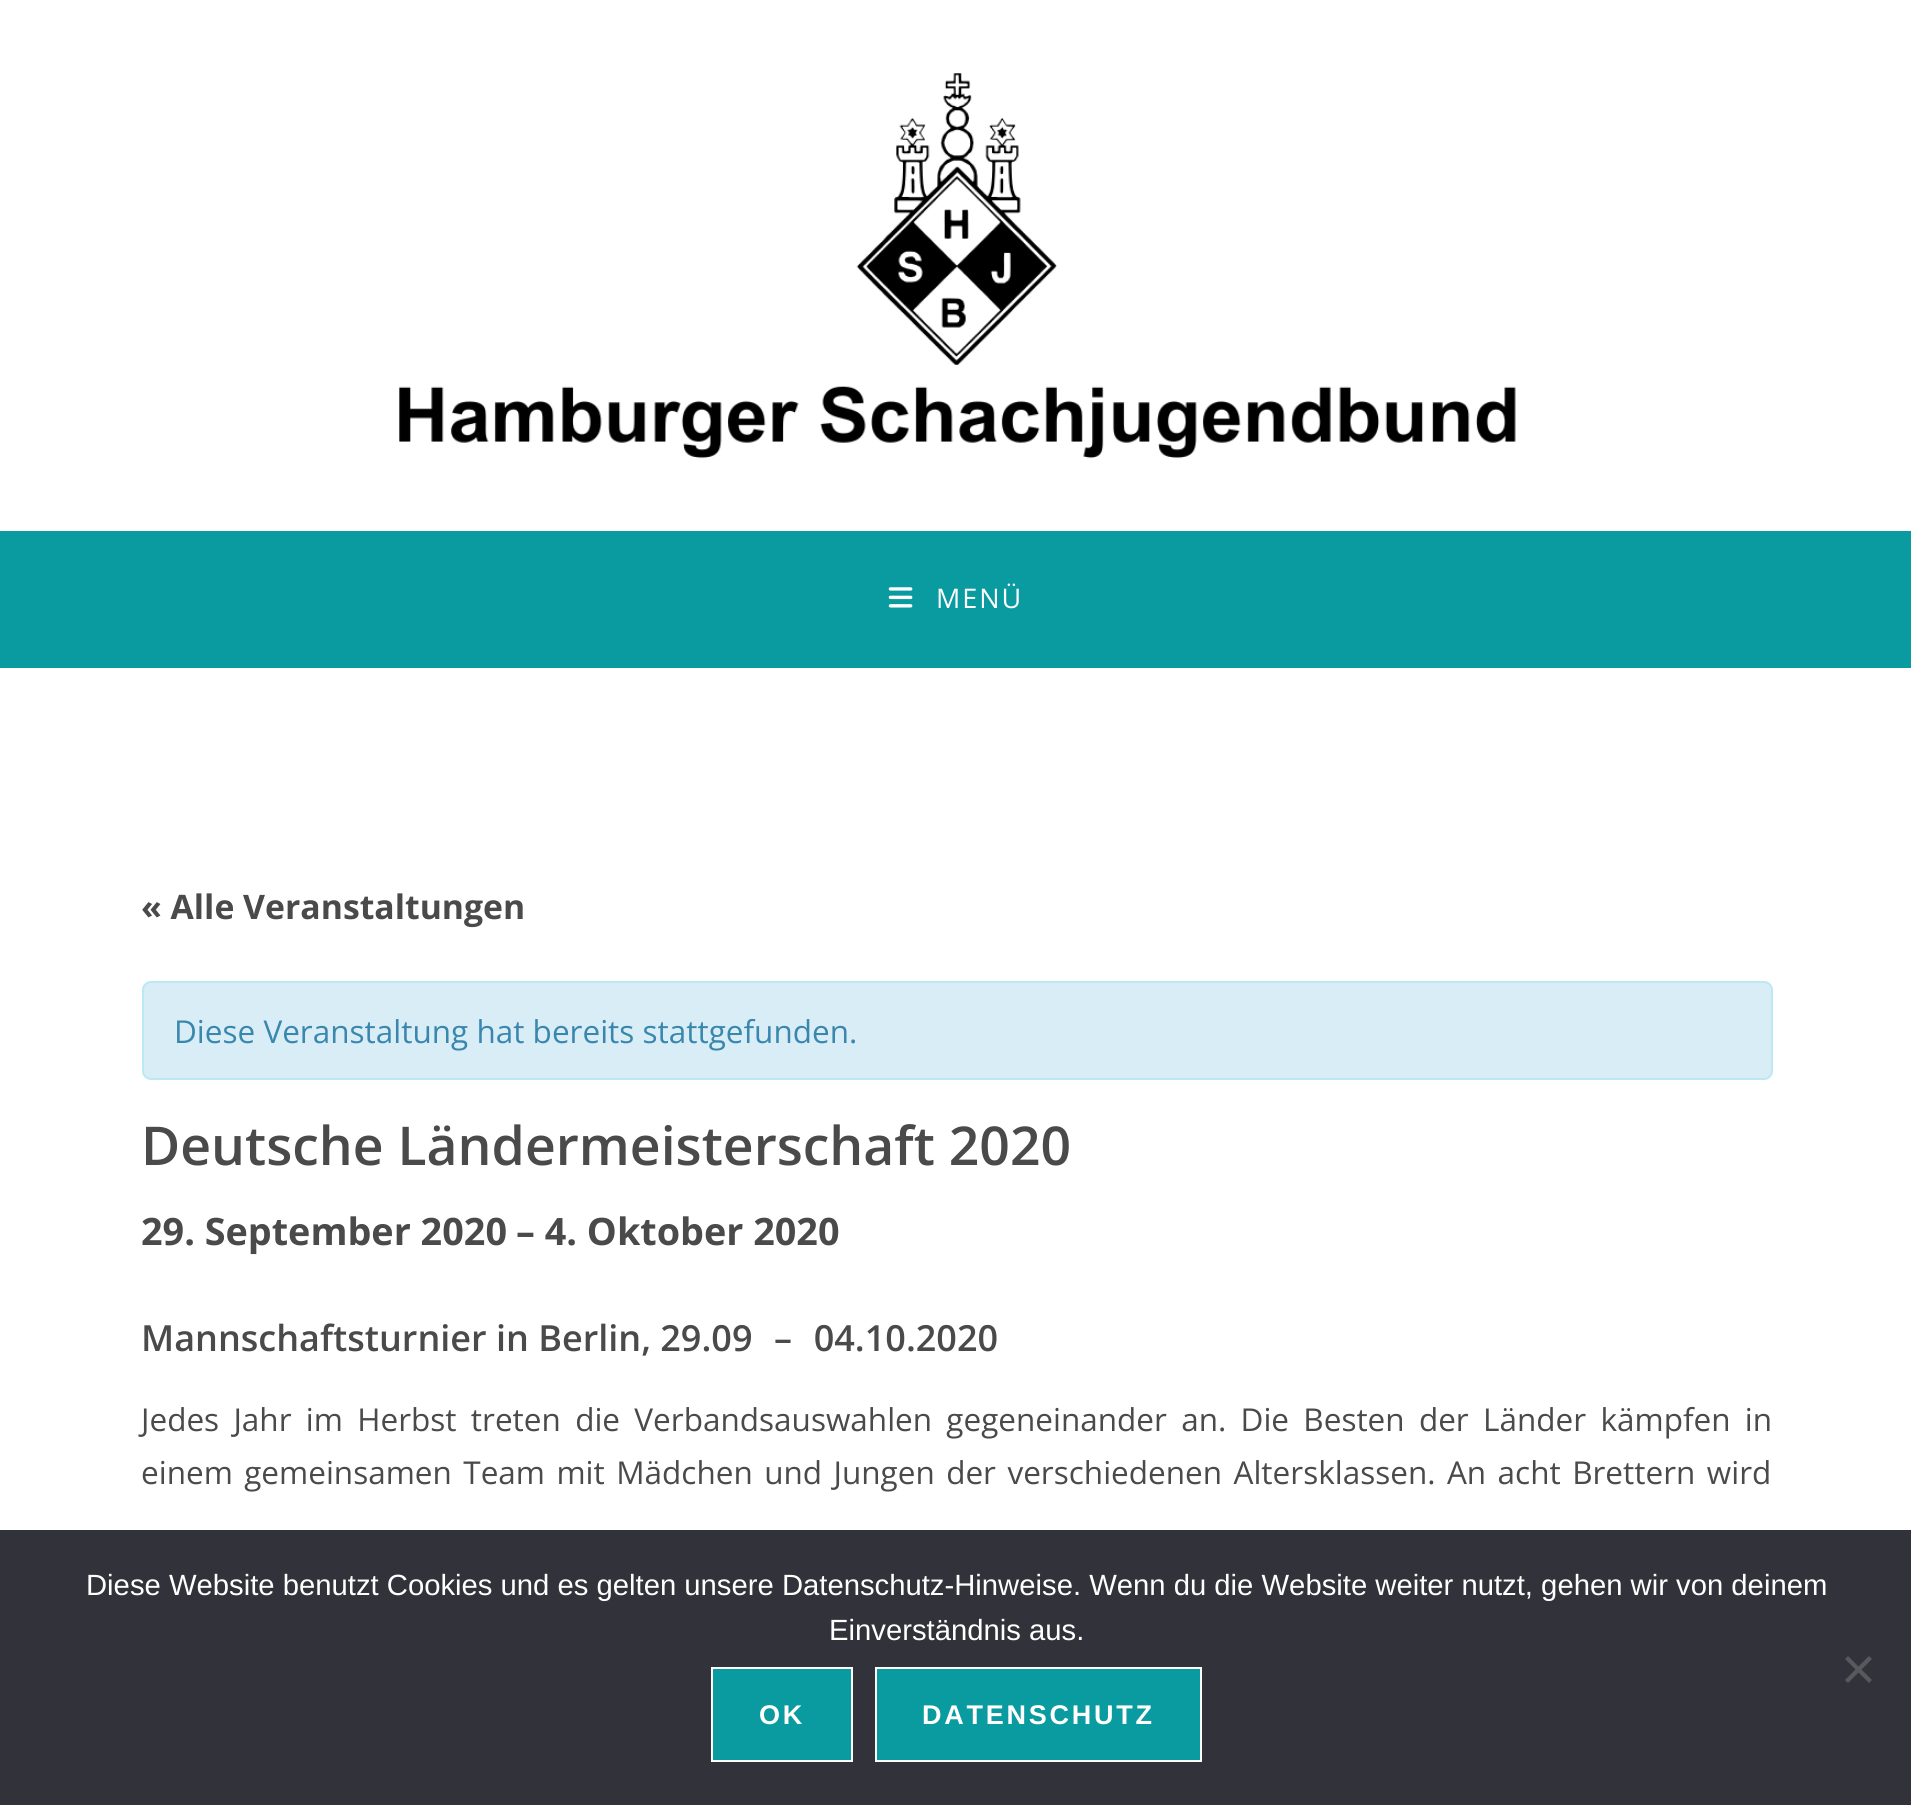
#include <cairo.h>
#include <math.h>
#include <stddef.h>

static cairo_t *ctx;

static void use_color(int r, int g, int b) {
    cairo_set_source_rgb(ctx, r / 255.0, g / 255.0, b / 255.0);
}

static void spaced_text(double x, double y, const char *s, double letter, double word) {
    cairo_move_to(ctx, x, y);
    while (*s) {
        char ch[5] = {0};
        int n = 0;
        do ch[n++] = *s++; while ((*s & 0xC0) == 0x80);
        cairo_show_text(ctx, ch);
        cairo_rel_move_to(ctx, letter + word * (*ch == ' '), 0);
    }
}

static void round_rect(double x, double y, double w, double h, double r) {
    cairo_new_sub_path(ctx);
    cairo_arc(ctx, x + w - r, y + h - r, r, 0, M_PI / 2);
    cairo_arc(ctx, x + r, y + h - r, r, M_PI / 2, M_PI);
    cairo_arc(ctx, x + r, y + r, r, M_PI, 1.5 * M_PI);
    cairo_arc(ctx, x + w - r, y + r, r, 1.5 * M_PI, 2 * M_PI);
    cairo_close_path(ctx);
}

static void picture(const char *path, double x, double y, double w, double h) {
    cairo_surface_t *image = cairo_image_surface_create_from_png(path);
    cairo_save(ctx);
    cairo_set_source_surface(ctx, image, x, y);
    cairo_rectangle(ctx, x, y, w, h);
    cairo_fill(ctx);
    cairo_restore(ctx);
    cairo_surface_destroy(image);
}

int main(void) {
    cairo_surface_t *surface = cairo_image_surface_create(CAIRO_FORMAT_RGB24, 1911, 1805);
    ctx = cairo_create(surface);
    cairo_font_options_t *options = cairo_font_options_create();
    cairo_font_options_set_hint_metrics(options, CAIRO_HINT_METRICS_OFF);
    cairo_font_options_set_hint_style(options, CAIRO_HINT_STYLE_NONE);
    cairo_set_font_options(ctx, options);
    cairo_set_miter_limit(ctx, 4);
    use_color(255, 255, 255);
    cairo_paint(ctx);
    use_color(9, 155, 160);
    cairo_rectangle(ctx, 0, 531, 1911, 137);
    cairo_fill(ctx);
    picture("img1.png", 399, 73, 1117, 386);
    picture("img2.png", 888, 587, 25, 21);
    cairo_select_font_face(ctx, "Open Sans", CAIRO_FONT_SLANT_NORMAL, CAIRO_FONT_WEIGHT_NORMAL);
    cairo_set_font_size(ctx, 27);
    use_color(255, 255, 255);
    spaced_text(936, 608, "MENÜ", 2, 0);
    cairo_select_font_face(ctx, "Open Sans", CAIRO_FONT_SLANT_NORMAL, CAIRO_FONT_WEIGHT_BOLD);
    cairo_set_font_size(ctx, 33.75);
    use_color(74, 74, 74);
    cairo_move_to(ctx, 141, 919);
    cairo_show_text(ctx, "« Alle Veranstaltungen");
    use_color(217, 237, 247);
    round_rect(143, 982, 1629, 97, 8);
    cairo_fill_preserve(ctx);
    use_color(188, 232, 241);
    cairo_stroke(ctx);
    cairo_select_font_face(ctx, "Open Sans", CAIRO_FONT_SLANT_NORMAL, CAIRO_FONT_WEIGHT_NORMAL);
    cairo_set_font_size(ctx, 31.5);
    use_color(58, 135, 173);
    cairo_move_to(ctx, 174, 1043);
    cairo_show_text(ctx, "Diese Veranstaltung hat bereits stattgefunden.");
    cairo_select_font_face(ctx, "Open Sans SemiBold", CAIRO_FONT_SLANT_NORMAL, CAIRO_FONT_WEIGHT_NORMAL);
    cairo_set_font_size(ctx, 53.5);
    use_color(74, 74, 74);
    cairo_move_to(ctx, 141, 1165);
    cairo_show_text(ctx, "Deutsche Ländermeisterschaft 2020");
    cairo_select_font_face(ctx, "Open Sans", CAIRO_FONT_SLANT_NORMAL, CAIRO_FONT_WEIGHT_BOLD);
    cairo_set_font_size(ctx, 37.75);
    cairo_move_to(ctx, 141, 1245);
    cairo_show_text(ctx, "29. September 2020");
    cairo_move_to(ctx, 516, 1245);
    cairo_show_text(ctx, "– 4. Oktober 2020");
    cairo_select_font_face(ctx, "Open Sans SemiBold", CAIRO_FONT_SLANT_NORMAL, CAIRO_FONT_WEIGHT_NORMAL);
    cairo_set_font_size(ctx, 36);
    cairo_move_to(ctx, 141, 1351);
    cairo_show_text(ctx, "Mannschaftsturnier in Berlin, 29.09 – 04.10.2020");
    cairo_select_font_face(ctx, "Open Sans", CAIRO_FONT_SLANT_NORMAL, CAIRO_FONT_WEIGHT_NORMAL);
    cairo_set_font_size(ctx, 31.5);
    spaced_text(141, 1431, "Jedes Jahr im Herbst treten die Verbandsauswahlen gegeneinander an. Die Besten der Länder kämpfen in", 0, 6.1);
    spaced_text(141, 1484, "einem gemeinsamen Team mit Mädchen und Jungen der verschiedenen Altersklassen. An acht Brettern wird", 0, 3.25);
    use_color(50, 50, 58);
    cairo_rectangle(ctx, 0, 1530, 1911, 275);
    cairo_fill(ctx);
    cairo_select_font_face(ctx, "Liberation Sans", CAIRO_FONT_SLANT_NORMAL, CAIRO_FONT_WEIGHT_NORMAL);
    cairo_set_font_size(ctx, 29.25);
    use_color(255, 255, 255);
    cairo_move_to(ctx, 86, 1595);
    cairo_show_text(ctx, "Diese Website benutzt Cookies und es gelten unsere Datenschutz-Hinweise. Wenn du die Website weiter nutzt, gehen wir von deinem");
    cairo_move_to(ctx, 829, 1640);
    cairo_show_text(ctx, "Einverständnis aus.");
    use_color(89, 89, 93);
    cairo_new_path(ctx);
    cairo_move_to(ctx, 1869, 1656);
    cairo_line_to(ctx, 1872, 1659);
    cairo_line_to(ctx, 1848, 1683);
    cairo_line_to(ctx, 1845, 1680);
    cairo_close_path(ctx);
    cairo_fill(ctx);
    cairo_new_path(ctx);
    cairo_move_to(ctx, 1845, 1659);
    cairo_line_to(ctx, 1848, 1656);
    cairo_line_to(ctx, 1872, 1680);
    cairo_line_to(ctx, 1869, 1683);
    cairo_close_path(ctx);
    cairo_fill(ctx);
    use_color(9, 155, 160);
    cairo_rectangle(ctx, 712, 1668, 140, 93);
    cairo_fill_preserve(ctx);
    use_color(255, 255, 255);
    cairo_stroke(ctx);
    cairo_select_font_face(ctx, "Liberation Sans", CAIRO_FONT_SLANT_NORMAL, CAIRO_FONT_WEIGHT_BOLD);
    cairo_set_font_size(ctx, 27);
    spaced_text(759, 1724, "OK", 2.75, 0);
    use_color(9, 155, 160);
    cairo_rectangle(ctx, 876, 1668, 325, 93);
    cairo_fill_preserve(ctx);
    use_color(255, 255, 255);
    cairo_stroke(ctx);
    spaced_text(922, 1724, "DATENSCHUTZ", 2.75, 0);
    cairo_surface_write_to_png(surface, "result.png");
    cairo_font_options_destroy(options);
    cairo_destroy(ctx);
    cairo_surface_destroy(surface);
    return 0;
}
